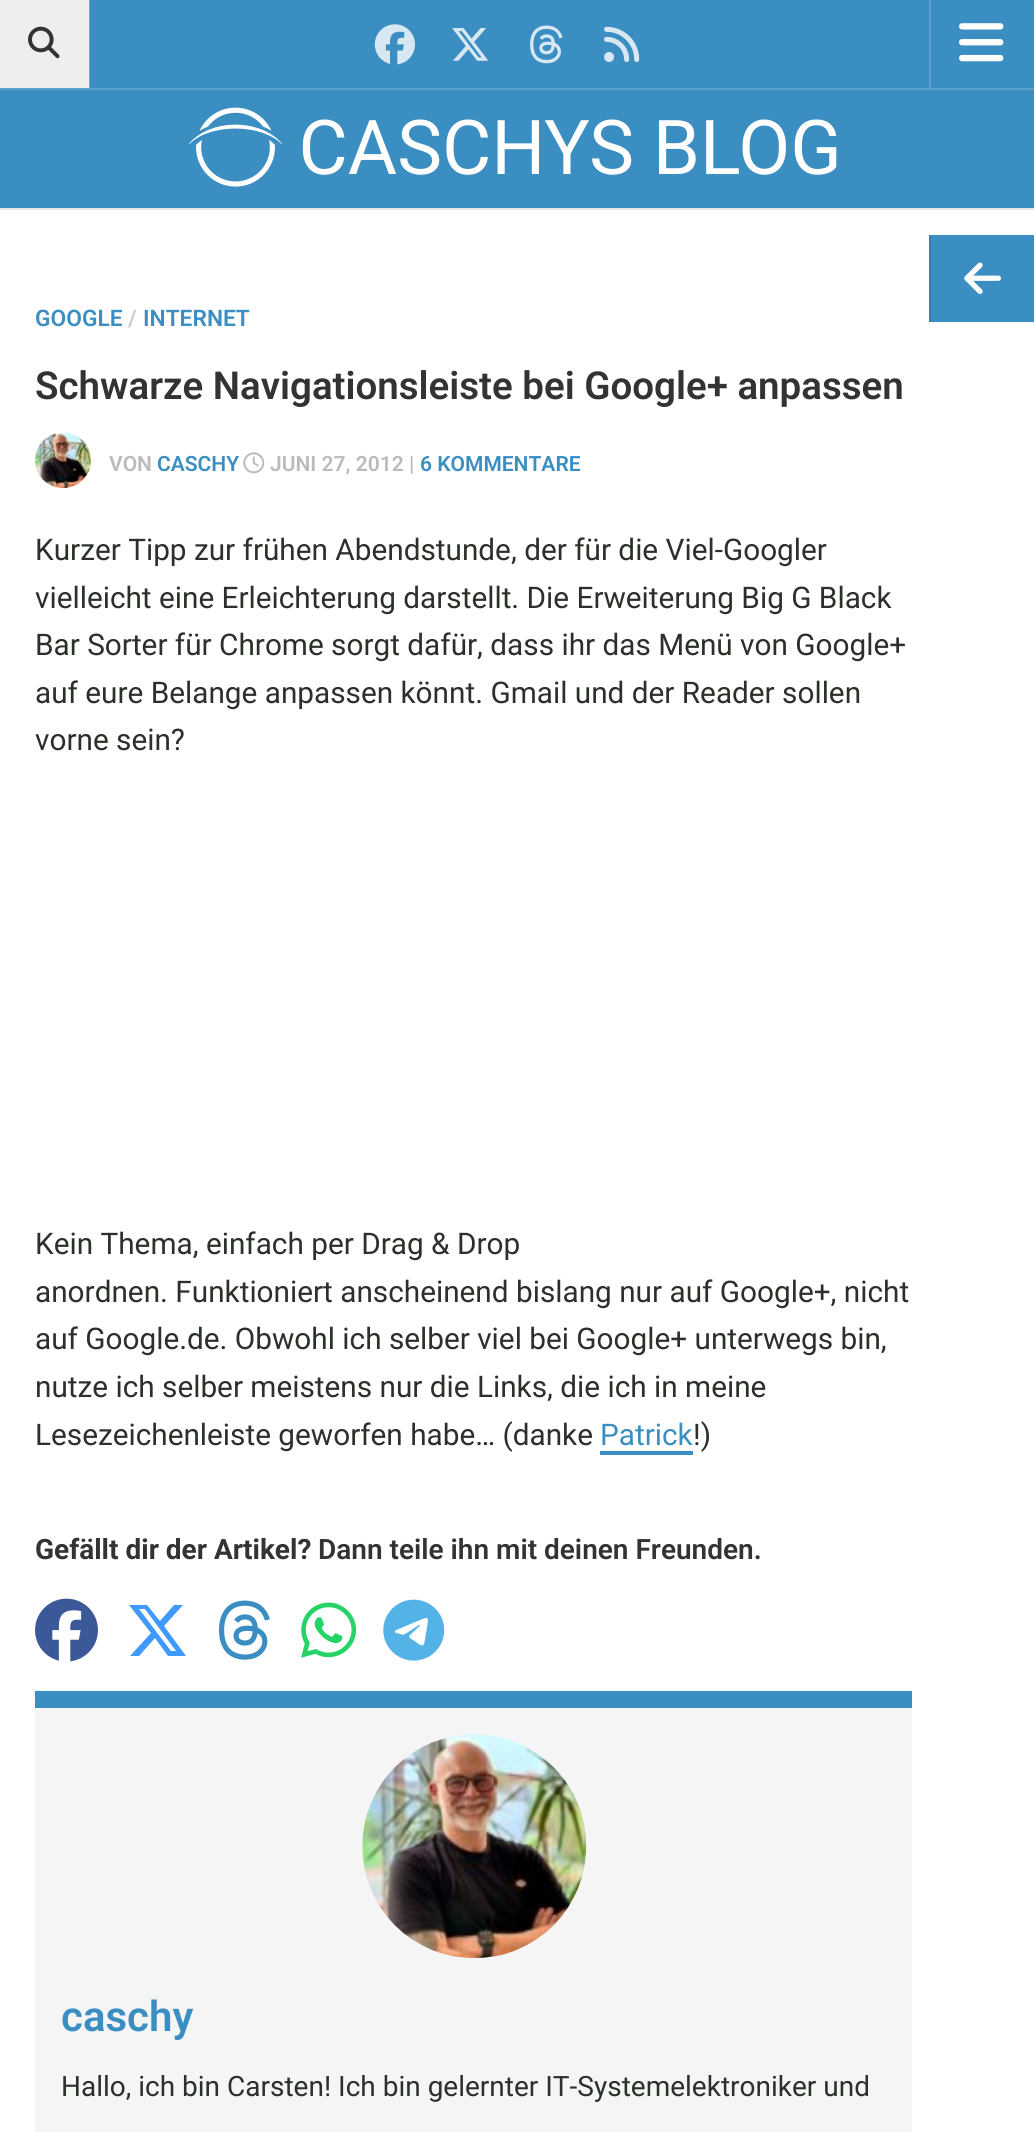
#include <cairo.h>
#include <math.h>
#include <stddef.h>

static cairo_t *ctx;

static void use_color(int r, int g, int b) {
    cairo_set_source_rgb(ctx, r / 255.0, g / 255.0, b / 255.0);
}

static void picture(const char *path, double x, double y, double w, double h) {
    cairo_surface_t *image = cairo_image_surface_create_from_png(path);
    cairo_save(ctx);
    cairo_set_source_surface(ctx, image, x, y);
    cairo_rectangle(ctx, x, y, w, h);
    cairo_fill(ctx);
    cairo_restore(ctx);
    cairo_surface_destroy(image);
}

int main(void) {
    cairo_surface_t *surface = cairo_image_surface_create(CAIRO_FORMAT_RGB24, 1034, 2132);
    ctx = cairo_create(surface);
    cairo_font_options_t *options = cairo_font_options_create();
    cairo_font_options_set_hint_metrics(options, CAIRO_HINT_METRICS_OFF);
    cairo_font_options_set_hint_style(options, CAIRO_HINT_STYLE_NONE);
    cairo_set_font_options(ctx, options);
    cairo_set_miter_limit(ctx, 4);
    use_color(255, 255, 255);
    cairo_paint(ctx);
    use_color(58, 142, 194);
    cairo_rectangle(ctx, 0, 0, 1034, 208);
    cairo_fill(ctx);
    use_color(97, 165, 206);
    cairo_rectangle(ctx, 89, 0, 1, 88);
    cairo_fill(ctx);
    use_color(88, 159, 203);
    cairo_rectangle(ctx, 0, 88, 1034, 2);
    cairo_fill(ctx);
    cairo_rectangle(ctx, 929, 0, 2, 88);
    cairo_fill(ctx);
    picture("img1.png", 959, 23, 45, 39);
    use_color(238, 238, 238);
    cairo_rectangle(ctx, 0, 0, 88, 88);
    cairo_fill(ctx);
    use_color(241, 241, 241);
    cairo_rectangle(ctx, 88, 0, 1, 88);
    cairo_fill(ctx);
    picture("img2.png", 28, 26, 32, 33);
    picture("img3.png", 374, 24, 41, 41);
    picture("img4.png", 452, 28, 37, 33);
    picture("img5.png", 530, 25, 33, 39);
    picture("img6.png", 604, 26, 36, 36);
    picture("img7.png", 189, 107, 648, 80);
    use_color(230, 230, 230);
    cairo_rectangle(ctx, 0, 208, 1034, 2);
    cairo_fill(ctx);
    use_color(58, 142, 194);
    cairo_rectangle(ctx, 931, 235, 103, 87);
    cairo_fill(ctx);
    use_color(52, 128, 175);
    cairo_rectangle(ctx, 929, 235, 2, 87);
    cairo_fill(ctx);
    picture("img8.png", 964, 262, 37, 32);
    cairo_select_font_face(ctx, "Roboto SemiBold", CAIRO_FONT_SLANT_NORMAL, CAIRO_FONT_WEIGHT_NORMAL);
    cairo_set_font_size(ctx, 22.75);
    use_color(58, 142, 194);
    cairo_move_to(ctx, 35, 326);
    cairo_show_text(ctx, "GOOGLE");
    use_color(204, 204, 204);
    cairo_move_to(ctx, 128, 326);
    cairo_show_text(ctx, "/");
    use_color(58, 142, 194);
    cairo_move_to(ctx, 143, 326);
    cairo_show_text(ctx, "INTERNET");
    cairo_set_font_size(ctx, 38.5);
    use_color(51, 51, 51);
    cairo_move_to(ctx, 35, 399);
    cairo_show_text(ctx, "Schwarze Navigationsleiste bei Google+ anpassen");
    picture("img9.png", 35, 432, 56, 57);
    cairo_set_font_size(ctx, 21);
    use_color(187, 187, 187);
    cairo_move_to(ctx, 109, 471);
    cairo_show_text(ctx, "VON");
    use_color(58, 142, 194);
    cairo_move_to(ctx, 157, 471);
    cairo_show_text(ctx, "CASCHY");
    picture("img10.png", 243, 452, 22, 22);
    use_color(187, 187, 187);
    cairo_move_to(ctx, 270, 471);
    cairo_show_text(ctx, "JUNI 27, 2012 |");
    use_color(58, 142, 194);
    cairo_move_to(ctx, 420, 471);
    cairo_show_text(ctx, "6 KOMMENTARE");
    cairo_select_font_face(ctx, "Roboto", CAIRO_FONT_SLANT_NORMAL, CAIRO_FONT_WEIGHT_NORMAL);
    cairo_set_font_size(ctx, 29.75);
    use_color(43, 48, 43);
    cairo_move_to(ctx, 35, 560);
    cairo_show_text(ctx, "Kurzer Tipp zur frühen Abendstunde, der für die Viel-Googler");
    cairo_move_to(ctx, 35, 608);
    cairo_show_text(ctx, "vielleicht eine Erleichterung darstellt. Die Erweiterung Big G Black");
    cairo_move_to(ctx, 35, 655);
    cairo_show_text(ctx, "Bar Sorter für Chrome sorgt dafür, dass ihr das Menü von Google+");
    cairo_move_to(ctx, 35, 703);
    cairo_show_text(ctx, "auf eure Belange anpassen könnt. Gmail und der Reader sollen");
    cairo_move_to(ctx, 35, 750);
    cairo_show_text(ctx, "vorne sein?");
    cairo_move_to(ctx, 35, 1254);
    cairo_show_text(ctx, "Kein Thema, einfach per Drag & Drop");
    cairo_move_to(ctx, 35, 1302);
    cairo_show_text(ctx, "anordnen. Funktioniert anscheinend bislang nur auf Google+, nicht");
    cairo_move_to(ctx, 35, 1349);
    cairo_show_text(ctx, "auf Google.de. Obwohl ich selber viel bei Google+ unterwegs bin,");
    cairo_move_to(ctx, 35, 1397);
    cairo_show_text(ctx, "nutze ich selber meistens nur die Links, die ich in meine");
    cairo_move_to(ctx, 35, 1445);
    cairo_show_text(ctx, "Lesezeichenleiste geworfen habe… (danke");
    use_color(58, 142, 194);
    cairo_move_to(ctx, 600, 1445);
    cairo_show_text(ctx, "Patrick");
    cairo_rectangle(ctx, 600, 1451, 93, 4);
    cairo_fill(ctx);
    use_color(43, 48, 43);
    cairo_move_to(ctx, 693, 1445);
    cairo_show_text(ctx, "!)");
    cairo_select_font_face(ctx, "Roboto", CAIRO_FONT_SLANT_NORMAL, CAIRO_FONT_WEIGHT_BOLD);
    cairo_set_font_size(ctx, 28);
    use_color(51, 51, 51);
    cairo_move_to(ctx, 35, 1559);
    cairo_show_text(ctx, "Gefällt dir der Artikel?");
    cairo_select_font_face(ctx, "Roboto SemiBold", CAIRO_FONT_SLANT_NORMAL, CAIRO_FONT_WEIGHT_NORMAL);
    cairo_move_to(ctx, 318, 1559);
    cairo_show_text(ctx, "Dann teile ihn mit deinen Freunden.");
    picture("img11.png", 35, 1598, 63, 64);
    use_color(64, 153, 255);
    cairo_new_path(ctx);
    cairo_move_to(ctx, 174, 1605);
    cairo_line_to(ctx, 183, 1605);
    cairo_line_to(ctx, 174, 1605);
    cairo_line_to(ctx, 183, 1605);
    cairo_line_to(ctx, 164, 1626);
    cairo_line_to(ctx, 186, 1656);
    cairo_line_to(ctx, 168, 1656);
    cairo_line_to(ctx, 155, 1638);
    cairo_line_to(ctx, 139, 1656);
    cairo_line_to(ctx, 130, 1656);
    cairo_line_to(ctx, 151, 1633);
    cairo_line_to(ctx, 129, 1605);
    cairo_line_to(ctx, 147, 1605);
    cairo_line_to(ctx, 160, 1621);
    cairo_close_path(ctx);
    cairo_move_to(ctx, 171, 1651);
    cairo_line_to(ctx, 176, 1651);
    cairo_line_to(ctx, 171, 1651);
    cairo_line_to(ctx, 176, 1651);
    cairo_line_to(ctx, 145, 1609);
    cairo_line_to(ctx, 139, 1609);
    cairo_close_path(ctx);
    cairo_fill(ctx);
    picture("img12.png", 219, 1600, 51, 60);
    picture("img13.png", 301, 1602, 56, 56);
    picture("img14.png", 383, 1599, 62, 62);
    use_color(245, 245, 245);
    cairo_rectangle(ctx, 35, 1708, 877, 424);
    cairo_fill(ctx);
    use_color(58, 142, 194);
    cairo_rectangle(ctx, 35, 1691, 877, 17);
    cairo_fill(ctx);
    picture("img15.png", 362, 1734, 225, 225);
    cairo_set_font_size(ctx, 42);
    cairo_move_to(ctx, 61, 2031);
    cairo_show_text(ctx, "caschy");
    cairo_select_font_face(ctx, "Roboto", CAIRO_FONT_SLANT_NORMAL, CAIRO_FONT_WEIGHT_NORMAL);
    cairo_set_font_size(ctx, 28);
    use_color(43, 48, 43);
    cairo_move_to(ctx, 61, 2096);
    cairo_show_text(ctx, "Hallo, ich bin Carsten! Ich bin gelernter IT-Systemelektroniker und");
    cairo_surface_write_to_png(surface, "result.png");
    cairo_font_options_destroy(options);
    cairo_destroy(ctx);
    cairo_surface_destroy(surface);
    return 0;
}
